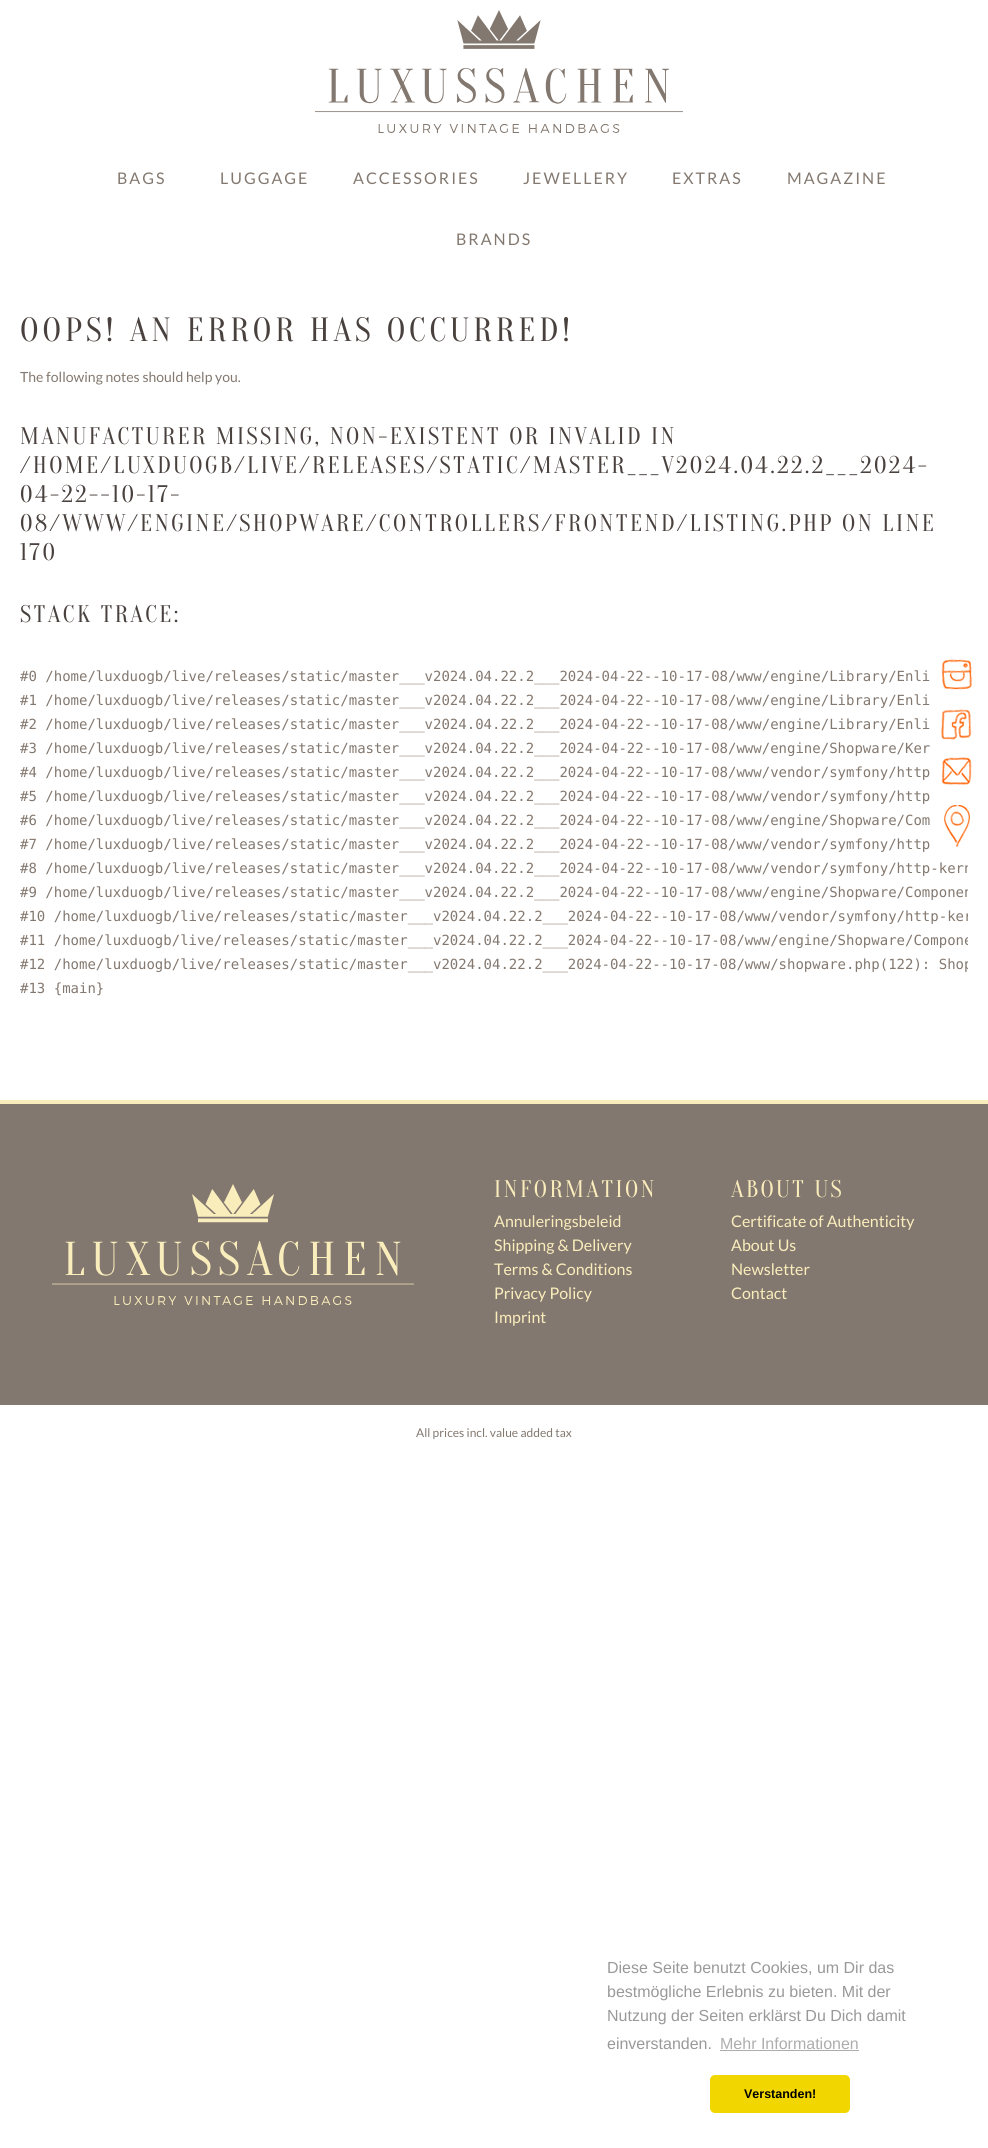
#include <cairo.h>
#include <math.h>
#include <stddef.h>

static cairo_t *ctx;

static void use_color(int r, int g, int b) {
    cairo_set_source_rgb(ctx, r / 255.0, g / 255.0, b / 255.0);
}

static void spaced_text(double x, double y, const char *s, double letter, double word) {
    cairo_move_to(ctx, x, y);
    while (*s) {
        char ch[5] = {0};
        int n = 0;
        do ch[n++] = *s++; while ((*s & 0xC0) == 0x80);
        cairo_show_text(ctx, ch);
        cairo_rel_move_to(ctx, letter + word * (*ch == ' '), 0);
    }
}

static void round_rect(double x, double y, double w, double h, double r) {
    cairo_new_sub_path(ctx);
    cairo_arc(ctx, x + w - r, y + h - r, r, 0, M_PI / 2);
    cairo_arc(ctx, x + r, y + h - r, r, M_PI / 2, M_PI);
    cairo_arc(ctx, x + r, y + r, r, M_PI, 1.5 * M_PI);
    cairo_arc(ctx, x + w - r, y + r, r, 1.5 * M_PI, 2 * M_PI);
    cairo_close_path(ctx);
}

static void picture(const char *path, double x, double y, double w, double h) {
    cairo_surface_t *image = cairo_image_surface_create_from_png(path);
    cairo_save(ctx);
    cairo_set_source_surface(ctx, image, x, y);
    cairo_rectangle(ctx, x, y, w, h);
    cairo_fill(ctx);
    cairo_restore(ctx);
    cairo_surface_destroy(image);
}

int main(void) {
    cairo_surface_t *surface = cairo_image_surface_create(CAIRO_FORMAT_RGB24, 988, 2148);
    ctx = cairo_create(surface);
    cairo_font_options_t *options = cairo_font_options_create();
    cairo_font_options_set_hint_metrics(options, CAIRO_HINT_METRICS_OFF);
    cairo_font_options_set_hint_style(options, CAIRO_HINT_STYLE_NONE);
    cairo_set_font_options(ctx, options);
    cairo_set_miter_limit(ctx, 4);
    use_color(255, 255, 255);
    cairo_paint(ctx);
    picture("img1.png", 315, 10, 368, 123);
    cairo_select_font_face(ctx, "Lato", CAIRO_FONT_SLANT_NORMAL, CAIRO_FONT_WEIGHT_NORMAL);
    cairo_set_font_size(ctx, 16);
    use_color(131, 120, 111);
    spaced_text(117, 184, "BAGS", 2, 0);
    spaced_text(220, 184, "LUGGAGE", 2, 0);
    spaced_text(353, 184, "ACCESSORIES", 2, 0);
    spaced_text(523, 184, "JEWELLERY", 2, 0);
    spaced_text(672, 184, "EXTRAS", 2, 0);
    spaced_text(787, 184, "MAGAZINE", 2, 0);
    spaced_text(456, 245, "BRANDS", 2, 0);
    cairo_select_font_face(ctx, "Oranienbaum", CAIRO_FONT_SLANT_NORMAL, CAIRO_FONT_WEIGHT_NORMAL);
    cairo_set_font_size(ctx, 33.6);
    use_color(73, 65, 62);
    spaced_text(20, 341, "OOPS! AN ERROR HAS OCCURRED!", 4, 0);
    cairo_select_font_face(ctx, "Lato", CAIRO_FONT_SLANT_NORMAL, CAIRO_FONT_WEIGHT_NORMAL);
    cairo_set_font_size(ctx, 14);
    use_color(131, 120, 111);
    cairo_move_to(ctx, 20, 382);
    cairo_show_text(ctx, "The following notes should help you.");
    cairo_select_font_face(ctx, "Oranienbaum", CAIRO_FONT_SLANT_NORMAL, CAIRO_FONT_WEIGHT_NORMAL);
    cairo_set_font_size(ctx, 24);
    use_color(73, 65, 62);
    spaced_text(20, 444, "MANUFACTURER MISSING, NON-EXISTENT OR INVALID IN", 2.4, 0);
    spaced_text(20, 473, "/HOME/LUXDUOGB/LIVE/RELEASES/STATIC/MASTER___V2024.04.22.2___2024-", 2.4, 0);
    spaced_text(20, 502, "04-22--10-17-", 2.4, 0);
    spaced_text(20, 531, "08/WWW/ENGINE/SHOPWARE/CONTROLLERS/FRONTEND/LISTING.PHP ON LINE", 2.4, 0);
    spaced_text(20, 560, "170", 2.4, 0);
    spaced_text(20, 622, "STACK TRACE:", 2.4, 0);
    cairo_select_font_face(ctx, "DejaVu Sans Mono", CAIRO_FONT_SLANT_NORMAL, CAIRO_FONT_WEIGHT_NORMAL);
    cairo_set_font_size(ctx, 14);
    use_color(131, 120, 111);
    cairo_move_to(ctx, 20, 681);
    cairo_show_text(ctx, "#0 /home/luxduogb/live/releases/static/master___v2024.04.22.2___2024-04-22--10-17-08/www/engine/Library/Enli");
    cairo_move_to(ctx, 20, 705);
    cairo_show_text(ctx, "#1 /home/luxduogb/live/releases/static/master___v2024.04.22.2___2024-04-22--10-17-08/www/engine/Library/Enli");
    cairo_move_to(ctx, 20, 729);
    cairo_show_text(ctx, "#2 /home/luxduogb/live/releases/static/master___v2024.04.22.2___2024-04-22--10-17-08/www/engine/Library/Enli");
    cairo_move_to(ctx, 20, 753);
    cairo_show_text(ctx, "#3 /home/luxduogb/live/releases/static/master___v2024.04.22.2___2024-04-22--10-17-08/www/engine/Shopware/Ker");
    cairo_move_to(ctx, 20, 777);
    cairo_show_text(ctx, "#4 /home/luxduogb/live/releases/static/master___v2024.04.22.2___2024-04-22--10-17-08/www/vendor/symfony/http");
    cairo_move_to(ctx, 20, 801);
    cairo_show_text(ctx, "#5 /home/luxduogb/live/releases/static/master___v2024.04.22.2___2024-04-22--10-17-08/www/vendor/symfony/http");
    cairo_move_to(ctx, 20, 825);
    cairo_show_text(ctx, "#6 /home/luxduogb/live/releases/static/master___v2024.04.22.2___2024-04-22--10-17-08/www/engine/Shopware/Com");
    cairo_move_to(ctx, 20, 849);
    cairo_show_text(ctx, "#7 /home/luxduogb/live/releases/static/master___v2024.04.22.2___2024-04-22--10-17-08/www/vendor/symfony/http");
    cairo_save(ctx);
    cairo_rectangle(ctx, 20, 664, 948, 336);
    cairo_clip(ctx);
    cairo_move_to(ctx, 20, 873);
    cairo_show_text(ctx, "#8 /home/luxduogb/live/releases/static/master___v2024.04.22.2___2024-04-22--10-17-08/www/vendor/symfony/http-kern");
    cairo_move_to(ctx, 20, 897);
    cairo_show_text(ctx, "#9 /home/luxduogb/live/releases/static/master___v2024.04.22.2___2024-04-22--10-17-08/www/engine/Shopware/Componen");
    cairo_move_to(ctx, 20, 921);
    cairo_show_text(ctx, "#10 /home/luxduogb/live/releases/static/master___v2024.04.22.2___2024-04-22--10-17-08/www/vendor/symfony/http-ker");
    cairo_move_to(ctx, 20, 945);
    cairo_show_text(ctx, "#11 /home/luxduogb/live/releases/static/master___v2024.04.22.2___2024-04-22--10-17-08/www/engine/Shopware/Compone");
    cairo_move_to(ctx, 20, 969);
    cairo_show_text(ctx, "#12 /home/luxduogb/live/releases/static/master___v2024.04.22.2___2024-04-22--10-17-08/www/shopware.php(122): Shop");
    cairo_restore(ctx);
    cairo_move_to(ctx, 20, 993);
    cairo_show_text(ctx, "#13 {main}");
    use_color(250, 237, 188);
    cairo_rectangle(ctx, 0, 1100, 988, 4);
    cairo_fill(ctx);
    use_color(131, 120, 111);
    cairo_rectangle(ctx, 0, 1104, 988, 301);
    cairo_fill(ctx);
    picture("img2.png", 52, 1184, 362, 121);
    cairo_select_font_face(ctx, "Oranienbaum", CAIRO_FONT_SLANT_NORMAL, CAIRO_FONT_WEIGHT_NORMAL);
    cairo_set_font_size(ctx, 24);
    use_color(250, 237, 188);
    spaced_text(494, 1197, "INFORMATION", 2.4, 0);
    cairo_select_font_face(ctx, "Lato", CAIRO_FONT_SLANT_NORMAL, CAIRO_FONT_WEIGHT_NORMAL);
    cairo_set_font_size(ctx, 16);
    cairo_move_to(ctx, 494, 1227);
    cairo_show_text(ctx, "Annuleringsbeleid");
    cairo_move_to(ctx, 494, 1251);
    cairo_show_text(ctx, "Shipping & Delivery");
    cairo_move_to(ctx, 494, 1275);
    cairo_show_text(ctx, "Terms & Conditions");
    cairo_move_to(ctx, 494, 1299);
    cairo_show_text(ctx, "Privacy Policy");
    cairo_move_to(ctx, 494, 1323);
    cairo_show_text(ctx, "Imprint");
    cairo_select_font_face(ctx, "Oranienbaum", CAIRO_FONT_SLANT_NORMAL, CAIRO_FONT_WEIGHT_NORMAL);
    cairo_set_font_size(ctx, 24);
    spaced_text(731, 1197, "ABOUT US", 2.4, 0);
    cairo_select_font_face(ctx, "Lato", CAIRO_FONT_SLANT_NORMAL, CAIRO_FONT_WEIGHT_NORMAL);
    cairo_set_font_size(ctx, 16);
    cairo_move_to(ctx, 731, 1227);
    cairo_show_text(ctx, "Certificate of Authenticity");
    cairo_move_to(ctx, 731, 1251);
    cairo_show_text(ctx, "About Us");
    cairo_move_to(ctx, 731, 1275);
    cairo_show_text(ctx, "Newsletter");
    cairo_move_to(ctx, 731, 1299);
    cairo_show_text(ctx, "Contact");
    cairo_set_font_size(ctx, 12);
    use_color(131, 120, 111);
    cairo_move_to(ctx, 416, 1437);
    cairo_show_text(ctx, "All prices incl. value added tax");
    picture("img3.png", 941, 659, 32, 31);
    picture("img4.png", 941, 709, 31, 31);
    picture("img5.png", 941, 757, 31, 28);
    picture("img6.png", 944, 805, 26, 42);
    cairo_select_font_face(ctx, "Liberation Sans", CAIRO_FONT_SLANT_NORMAL, CAIRO_FONT_WEIGHT_NORMAL);
    cairo_set_font_size(ctx, 16);
    use_color(153, 153, 153);
    cairo_move_to(ctx, 607, 1973);
    cairo_show_text(ctx, "Diese Seite benutzt Cookies, um Dir das");
    cairo_move_to(ctx, 607, 1997);
    cairo_show_text(ctx, "bestmögliche Erlebnis zu bieten. Mit der");
    cairo_move_to(ctx, 607, 2021);
    cairo_show_text(ctx, "Nutzung der Seiten erklärst Du Dich damit");
    cairo_move_to(ctx, 607, 2049);
    cairo_show_text(ctx, "einverstanden.");
    use_color(173, 173, 173);
    cairo_move_to(ctx, 720, 2049);
    cairo_show_text(ctx, "Mehr Informationen");
    cairo_rectangle(ctx, 720, 2050, 139, 1);
    cairo_fill(ctx);
    use_color(241, 214, 0);
    round_rect(710, 2075, 140, 38, 5);
    cairo_fill(ctx);
    cairo_select_font_face(ctx, "Liberation Sans", CAIRO_FONT_SLANT_NORMAL, CAIRO_FONT_WEIGHT_BOLD);
    cairo_set_font_size(ctx, 12.5);
    use_color(0, 0, 0);
    cairo_move_to(ctx, 744, 2098);
    cairo_show_text(ctx, "Verstanden!");
    cairo_surface_write_to_png(surface, "result.png");
    cairo_font_options_destroy(options);
    cairo_destroy(ctx);
    cairo_surface_destroy(surface);
    return 0;
}
